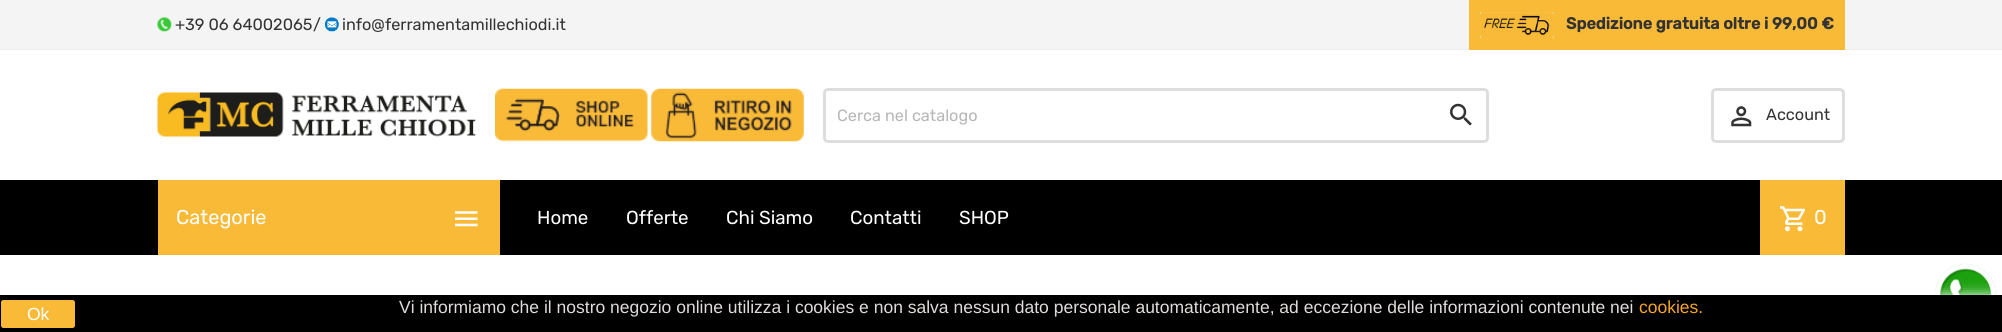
#include <cairo.h>
#include <math.h>
#include <stddef.h>

static cairo_t *ctx;

static void use_color(int r, int g, int b) {
    cairo_set_source_rgb(ctx, r / 255.0, g / 255.0, b / 255.0);
}

static void round_rect(double x, double y, double w, double h, double r) {
    cairo_new_sub_path(ctx);
    cairo_arc(ctx, x + w - r, y + h - r, r, 0, M_PI / 2);
    cairo_arc(ctx, x + r, y + h - r, r, M_PI / 2, M_PI);
    cairo_arc(ctx, x + r, y + r, r, M_PI, 1.5 * M_PI);
    cairo_arc(ctx, x + w - r, y + r, r, 1.5 * M_PI, 2 * M_PI);
    cairo_close_path(ctx);
}

static void shadow(double x, double y, double w, double h, double r, double blur, double alpha) {
    cairo_push_group_with_content(ctx, CAIRO_CONTENT_ALPHA);
    cairo_set_operator(ctx, CAIRO_OPERATOR_SOURCE);
    for (int i = 15; i >= -15 && fmin(w, h) + blur * i / 3 > 0; i -= 2) {
        double e = blur * i / 6;
        cairo_set_source_rgba(ctx, 0, 0, 0, alpha * erfc((i - 1) / 8.5) / 2);
        round_rect(x - e, y - e, w + 2 * e, h + 2 * e, fmax(0, fmin(r + e + blur * .6, fmin(w, h) / 2 + e)));
        cairo_fill(ctx);
    }
    cairo_pattern_t *soft = cairo_pop_group(ctx);
    cairo_mask(ctx, soft);
    cairo_pattern_destroy(soft);
}

static void picture(const char *path, double x, double y, double w, double h) {
    cairo_surface_t *image = cairo_image_surface_create_from_png(path);
    cairo_save(ctx);
    cairo_set_source_surface(ctx, image, x, y);
    cairo_rectangle(ctx, x, y, w, h);
    cairo_fill(ctx);
    cairo_restore(ctx);
    cairo_surface_destroy(image);
}

int main(void) {
    cairo_surface_t *surface = cairo_image_surface_create(CAIRO_FORMAT_RGB24, 2002, 332);
    ctx = cairo_create(surface);
    cairo_font_options_t *options = cairo_font_options_create();
    cairo_font_options_set_hint_metrics(options, CAIRO_HINT_METRICS_OFF);
    cairo_font_options_set_hint_style(options, CAIRO_HINT_STYLE_NONE);
    cairo_set_font_options(ctx, options);
    cairo_set_miter_limit(ctx, 4);
    use_color(255, 255, 255);
    cairo_paint(ctx);
    use_color(244, 244, 244);
    cairo_rectangle(ctx, 0, 0, 2002, 49);
    cairo_fill(ctx);
    use_color(238, 238, 238);
    cairo_rectangle(ctx, 0, 49, 2002, 1);
    cairo_fill(ctx);
    picture("img1.png", 157, 17, 15, 15);
    cairo_select_font_face(ctx, "Rubik", CAIRO_FONT_SLANT_NORMAL, CAIRO_FONT_WEIGHT_NORMAL);
    cairo_set_font_size(ctx, 16.25);
    use_color(51, 51, 51);
    cairo_move_to(ctx, 175, 30);
    cairo_show_text(ctx, "+39 06 64002065");
    cairo_move_to(ctx, 313, 30);
    cairo_show_text(ctx, "/");
    picture("img2.png", 325, 17, 14, 15);
    cairo_move_to(ctx, 342, 30);
    cairo_show_text(ctx, "info@ferramentamillechiodi.it");
    use_color(249, 186, 56);
    cairo_rectangle(ctx, 1469, 0, 376, 50);
    cairo_fill(ctx);
    picture("img3.png", 1480, 12, 74, 26);
    cairo_select_font_face(ctx, "Rubik", CAIRO_FONT_SLANT_NORMAL, CAIRO_FONT_WEIGHT_BOLD);
    use_color(51, 51, 51);
    cairo_move_to(ctx, 1566, 29);
    cairo_show_text(ctx, "Spedizione gratuita oltre i 99,00 €");
    picture("img4.png", 157, 92, 319, 45);
    picture("img5.png", 495, 88, 153, 54);
    picture("img6.png", 651, 88, 153, 54);
    round_rect(824.5, 89.5, 663, 52, 3.5);
    use_color(221, 221, 221);
    cairo_set_line_width(ctx, 3);
    cairo_stroke(ctx);
    cairo_select_font_face(ctx, "Rubik", CAIRO_FONT_SLANT_NORMAL, CAIRO_FONT_WEIGHT_NORMAL);
    use_color(183, 183, 183);
    cairo_move_to(ctx, 837, 121);
    cairo_show_text(ctx, "Cerca nel catalogo");
    picture("img7.png", 1450, 103, 22, 23);
    round_rect(1712.5, 89.5, 131, 52, 3.5);
    use_color(221, 221, 221);
    cairo_stroke(ctx);
    picture("img8.png", 1731, 106, 21, 21);
    use_color(51, 51, 51);
    cairo_move_to(ctx, 1766, 120);
    cairo_show_text(ctx, "Account");
    use_color(0, 0, 0);
    cairo_rectangle(ctx, 0, 180, 2002, 75);
    cairo_fill(ctx);
    use_color(249, 186, 56);
    cairo_rectangle(ctx, 158, 180, 342, 75);
    cairo_fill(ctx);
    cairo_set_font_size(ctx, 20);
    use_color(255, 255, 255);
    cairo_move_to(ctx, 176, 224);
    cairo_show_text(ctx, "Categorie");
    picture("img9.png", 455, 211, 23, 16);
    cairo_set_font_size(ctx, 18.75);
    cairo_move_to(ctx, 537, 224);
    cairo_show_text(ctx, "Home");
    cairo_move_to(ctx, 626, 224);
    cairo_show_text(ctx, "Offerte");
    cairo_move_to(ctx, 726, 224);
    cairo_show_text(ctx, "Chi Siamo");
    cairo_move_to(ctx, 850, 224);
    cairo_show_text(ctx, "Contatti");
    cairo_move_to(ctx, 959, 224);
    cairo_show_text(ctx, "SHOP");
    use_color(249, 186, 56);
    cairo_rectangle(ctx, 1760, 180, 85, 75);
    cairo_fill(ctx);
    picture("img10.png", 1780, 206, 25, 26);
    cairo_set_font_size(ctx, 20);
    use_color(255, 255, 255);
    cairo_move_to(ctx, 1814, 224);
    cairo_show_text(ctx, "0");
    picture("img11.png", 1934, 263, 63, 32);
    use_color(255, 255, 255);
    shadow(0, 295, 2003, 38, 0, 6, 1);
    use_color(0, 0, 0);
    cairo_rectangle(ctx, 0, 295, 2002, 37);
    cairo_fill(ctx);
    use_color(249, 186, 56);
    round_rect(1, 300, 74, 28, 2.5);
    cairo_fill(ctx);
    cairo_select_font_face(ctx, "Liberation Sans", CAIRO_FONT_SLANT_NORMAL, CAIRO_FONT_WEIGHT_NORMAL);
    cairo_set_font_size(ctx, 17.5);
    use_color(255, 255, 255);
    cairo_move_to(ctx, 27, 320);
    cairo_show_text(ctx, "Ok");
    use_color(225, 220, 220);
    cairo_move_to(ctx, 399, 313);
    cairo_show_text(ctx, "Vi informiamo che il nostro negozio online utilizza i cookies e non salva nessun dato personale automaticamente, ad eccezione delle informazioni contenute nei");
    use_color(245, 166, 35);
    cairo_move_to(ctx, 1639, 313);
    cairo_show_text(ctx, "cookies.");
    cairo_surface_write_to_png(surface, "result.png");
    cairo_font_options_destroy(options);
    cairo_destroy(ctx);
    cairo_surface_destroy(surface);
    return 0;
}
